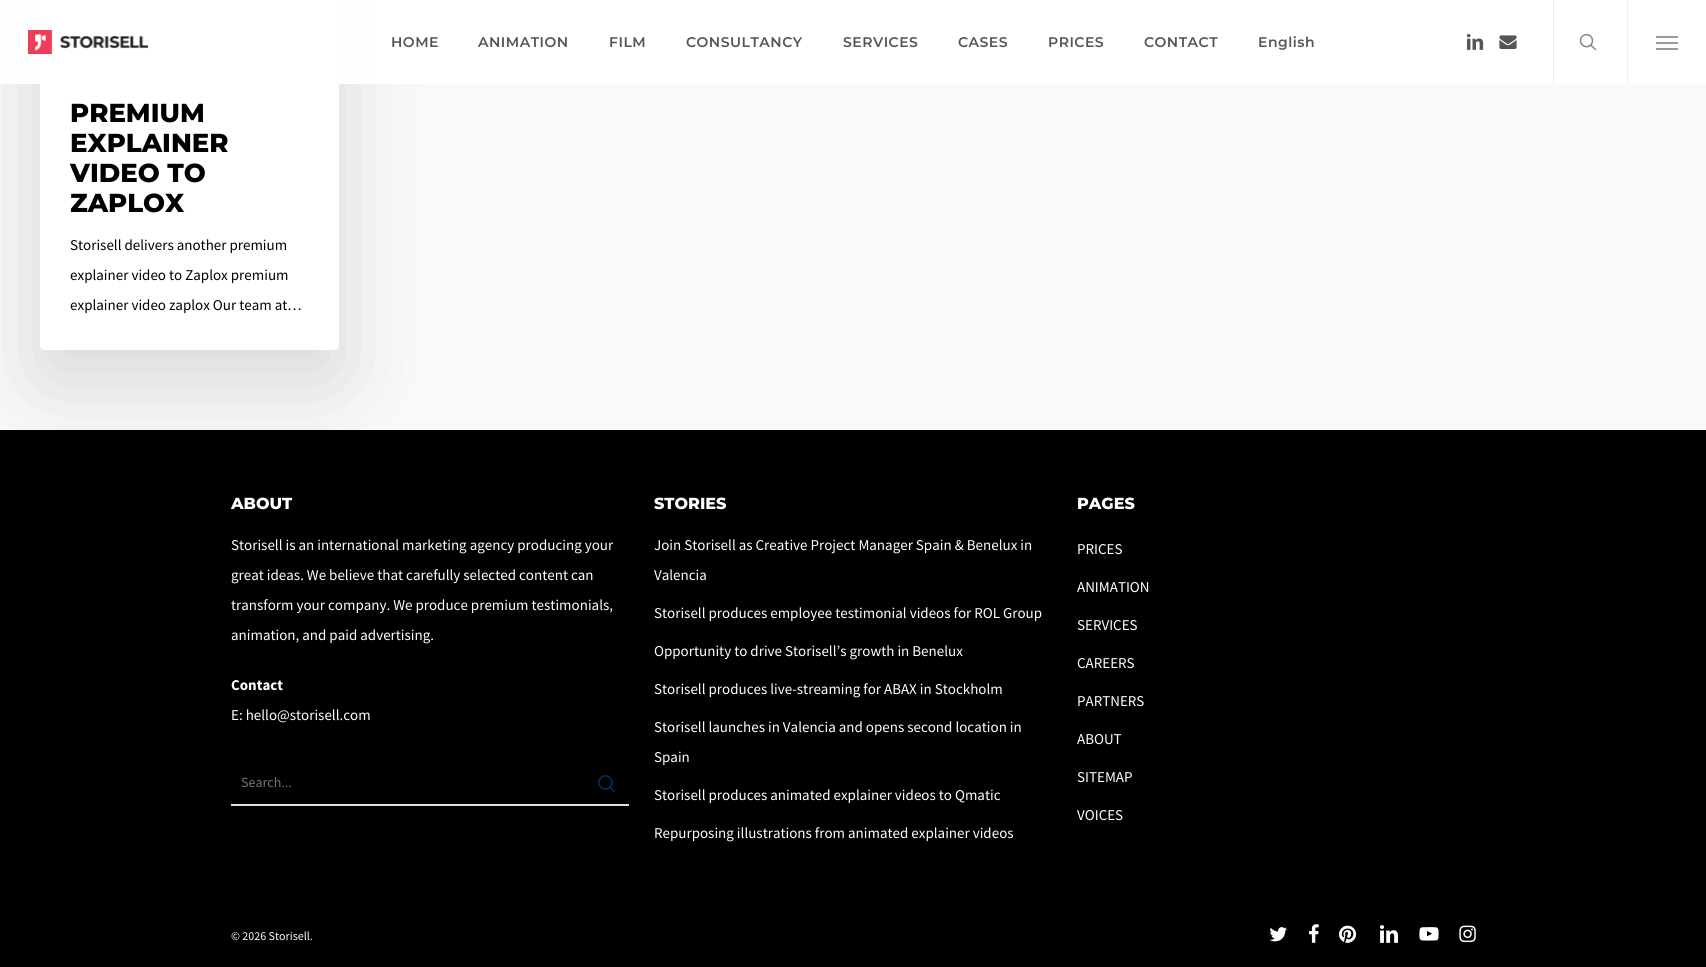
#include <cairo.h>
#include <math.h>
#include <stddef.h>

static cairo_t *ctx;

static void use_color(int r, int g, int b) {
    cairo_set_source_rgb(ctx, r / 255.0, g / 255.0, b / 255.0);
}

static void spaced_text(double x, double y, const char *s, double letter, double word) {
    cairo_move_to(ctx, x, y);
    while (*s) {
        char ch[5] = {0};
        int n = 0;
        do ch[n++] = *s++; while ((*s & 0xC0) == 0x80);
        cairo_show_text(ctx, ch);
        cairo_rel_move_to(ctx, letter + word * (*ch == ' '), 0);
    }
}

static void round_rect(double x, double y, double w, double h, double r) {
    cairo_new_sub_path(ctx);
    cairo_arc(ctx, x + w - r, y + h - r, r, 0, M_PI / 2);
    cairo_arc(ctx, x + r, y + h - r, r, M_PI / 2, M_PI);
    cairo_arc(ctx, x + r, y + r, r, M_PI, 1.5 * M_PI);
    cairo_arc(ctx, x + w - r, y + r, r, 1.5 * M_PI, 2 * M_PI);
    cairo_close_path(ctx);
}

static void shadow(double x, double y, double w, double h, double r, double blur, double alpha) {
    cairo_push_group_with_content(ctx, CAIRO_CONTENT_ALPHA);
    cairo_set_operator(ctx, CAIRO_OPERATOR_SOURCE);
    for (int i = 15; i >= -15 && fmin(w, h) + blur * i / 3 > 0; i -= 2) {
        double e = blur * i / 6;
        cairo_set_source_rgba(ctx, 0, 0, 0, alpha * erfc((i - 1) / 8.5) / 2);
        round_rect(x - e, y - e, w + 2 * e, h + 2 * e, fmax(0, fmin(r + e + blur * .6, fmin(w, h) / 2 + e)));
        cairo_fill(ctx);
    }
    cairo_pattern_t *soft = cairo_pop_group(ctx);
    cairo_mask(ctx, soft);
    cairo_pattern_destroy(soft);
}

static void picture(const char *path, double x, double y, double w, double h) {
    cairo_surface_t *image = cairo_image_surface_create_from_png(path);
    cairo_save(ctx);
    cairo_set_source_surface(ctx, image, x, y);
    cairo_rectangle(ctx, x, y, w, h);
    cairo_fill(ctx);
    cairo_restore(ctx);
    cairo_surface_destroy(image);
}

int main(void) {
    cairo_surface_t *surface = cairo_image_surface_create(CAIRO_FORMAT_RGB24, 1706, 967);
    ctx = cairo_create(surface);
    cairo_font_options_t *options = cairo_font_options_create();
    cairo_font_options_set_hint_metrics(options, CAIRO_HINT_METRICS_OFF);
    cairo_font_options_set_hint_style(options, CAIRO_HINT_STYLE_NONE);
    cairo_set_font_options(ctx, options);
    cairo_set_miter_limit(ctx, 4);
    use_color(249, 249, 249);
    cairo_paint(ctx);
    use_color(0, 0, 0);
    cairo_rectangle(ctx, 0, 430, 1706, 537);
    cairo_fill(ctx);
    cairo_save(ctx);
    cairo_rectangle(ctx, 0, 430, 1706, 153);
    cairo_clip(ctx);
    use_color(0, 0, 0);
    shadow(30, -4, 1646, 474, 0, 55, 1);
    cairo_restore(ctx);
    use_color(0, 0, 0);
    shadow(40, -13, 299, 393, 5, 45, 0.14);
    use_color(255, 255, 255);
    cairo_rectangle(ctx, 40, 0, 299, 28);
    cairo_fill(ctx);
    cairo_new_path(ctx);
    cairo_move_to(ctx, 40, 28);
    cairo_line_to(ctx, 339, 28);
    cairo_line_to(ctx, 339, 345);
    cairo_curve_to(ctx, 339, 348, 337, 350, 334, 350);
    cairo_line_to(ctx, 45, 350);
    cairo_curve_to(ctx, 42, 350, 40, 348, 40, 345);
    cairo_close_path(ctx);
    cairo_fill(ctx);
    cairo_set_source_rgba(ctx, 1, 1, 1, 0.96);
    cairo_rectangle(ctx, 0, 0, 1706, 84);
    cairo_fill(ctx);
    picture("img1.png", 28, 30, 121, 24);
    cairo_select_font_face(ctx, "Montserrat SemiBold", CAIRO_FONT_SLANT_NORMAL, CAIRO_FONT_WEIGHT_NORMAL);
    cairo_set_font_size(ctx, 14);
    use_color(85, 85, 85);
    spaced_text(391, 47, "HOME", 0.5, 0);
    spaced_text(478, 47, "ANIMATION", 0.5, 0);
    spaced_text(609, 47, "FILM", 0.5, 0);
    spaced_text(686, 47, "CONSULTANCY", 0.5, 0);
    spaced_text(843, 47, "SERVICES", 0.5, 0);
    spaced_text(958, 47, "CASES", 0.5, 0);
    spaced_text(1048, 47, "PRICES", 0.5, 0);
    spaced_text(1144, 47, "CONTACT", 0.5, 0);
    spaced_text(1258, 47, "English", 0.5, 0);
    picture("img2.png", 1466, 33, 18, 17);
    picture("img3.png", 1499, 35, 18, 14);
    use_color(237, 237, 237);
    cairo_rectangle(ctx, 1553, 0, 1, 84);
    cairo_fill(ctx);
    picture("img4.png", 1579, 33, 18, 18);
    cairo_rectangle(ctx, 1627, 0, 1, 84);
    cairo_fill(ctx);
    use_color(153, 153, 153);
    cairo_rectangle(ctx, 1656, 36, 22, 2);
    cairo_fill(ctx);
    cairo_rectangle(ctx, 1656, 48, 22, 2);
    cairo_fill(ctx);
    cairo_rectangle(ctx, 1656, 42, 22, 2);
    cairo_fill(ctx);
    cairo_select_font_face(ctx, "Montserrat ExtraBold", CAIRO_FONT_SLANT_NORMAL, CAIRO_FONT_WEIGHT_NORMAL);
    cairo_set_font_size(ctx, 26);
    use_color(0, 0, 0);
    cairo_move_to(ctx, 70, 122);
    cairo_show_text(ctx, "PREMIUM");
    cairo_move_to(ctx, 70, 152);
    cairo_show_text(ctx, "EXPLAINER");
    cairo_move_to(ctx, 70, 182);
    cairo_show_text(ctx, "VIDEO TO");
    cairo_move_to(ctx, 70, 212);
    cairo_show_text(ctx, "ZAPLOX");
    cairo_select_font_face(ctx, "Source Sans Pro", CAIRO_FONT_SLANT_NORMAL, CAIRO_FONT_WEIGHT_NORMAL);
    cairo_set_font_size(ctx, 15);
    cairo_move_to(ctx, 70, 250);
    cairo_show_text(ctx, "Storisell delivers another premium");
    cairo_move_to(ctx, 70, 280);
    cairo_show_text(ctx, "explainer video to Zaplox premium");
    cairo_move_to(ctx, 70, 310);
    cairo_show_text(ctx, "explainer video zaplox Our team at…");
    cairo_select_font_face(ctx, "Montserrat ExtraBold", CAIRO_FONT_SLANT_NORMAL, CAIRO_FONT_WEIGHT_NORMAL);
    cairo_set_font_size(ctx, 16);
    use_color(255, 255, 255);
    cairo_move_to(ctx, 231, 509);
    cairo_show_text(ctx, "ABOUT");
    cairo_select_font_face(ctx, "Source Sans Pro", CAIRO_FONT_SLANT_NORMAL, CAIRO_FONT_WEIGHT_NORMAL);
    cairo_set_font_size(ctx, 15);
    cairo_move_to(ctx, 231, 550);
    cairo_show_text(ctx, "Storisell is an international marketing agency producing your");
    cairo_move_to(ctx, 231, 580);
    cairo_show_text(ctx, "great ideas. We believe that carefully selected content can");
    cairo_move_to(ctx, 231, 610);
    cairo_show_text(ctx, "transform your company. We produce premium testimonials,");
    cairo_move_to(ctx, 231, 640);
    cairo_show_text(ctx, "animation, and paid advertising.");
    cairo_select_font_face(ctx, "Source Sans Pro", CAIRO_FONT_SLANT_NORMAL, CAIRO_FONT_WEIGHT_BOLD);
    cairo_move_to(ctx, 231, 690);
    cairo_show_text(ctx, "Contact");
    cairo_select_font_face(ctx, "Source Sans Pro", CAIRO_FONT_SLANT_NORMAL, CAIRO_FONT_WEIGHT_NORMAL);
    cairo_move_to(ctx, 231, 720);
    cairo_show_text(ctx, "E: hello@storisell.com");
    use_color(224, 224, 224);
    cairo_rectangle(ctx, 231, 804, 398, 2);
    cairo_fill(ctx);
    cairo_set_font_size(ctx, 14);
    use_color(117, 117, 117);
    cairo_move_to(ctx, 241, 787);
    cairo_show_text(ctx, "Search...");
    picture("img5.png", 598, 775, 17, 17);
    cairo_select_font_face(ctx, "Montserrat ExtraBold", CAIRO_FONT_SLANT_NORMAL, CAIRO_FONT_WEIGHT_NORMAL);
    cairo_set_font_size(ctx, 16);
    use_color(255, 255, 255);
    cairo_move_to(ctx, 654, 509);
    cairo_show_text(ctx, "STORIES");
    cairo_select_font_face(ctx, "Source Sans Pro", CAIRO_FONT_SLANT_NORMAL, CAIRO_FONT_WEIGHT_NORMAL);
    cairo_set_font_size(ctx, 15);
    cairo_move_to(ctx, 654, 550);
    cairo_show_text(ctx, "Join Storisell as Creative Project Manager Spain & Benelux in");
    cairo_move_to(ctx, 654, 580);
    cairo_show_text(ctx, "Valencia");
    cairo_move_to(ctx, 654, 618);
    cairo_show_text(ctx, "Storisell produces employee testimonial videos for ROL Group");
    cairo_move_to(ctx, 654, 656);
    cairo_show_text(ctx, "Opportunity to drive Storisell’s growth in Benelux");
    cairo_move_to(ctx, 654, 694);
    cairo_show_text(ctx, "Storisell produces live-streaming for ABAX in Stockholm");
    cairo_move_to(ctx, 654, 732);
    cairo_show_text(ctx, "Storisell launches in Valencia and opens second location in");
    cairo_move_to(ctx, 654, 762);
    cairo_show_text(ctx, "Spain");
    cairo_move_to(ctx, 654, 800);
    cairo_show_text(ctx, "Storisell produces animated explainer videos to Qmatic");
    cairo_move_to(ctx, 654, 838);
    cairo_show_text(ctx, "Repurposing illustrations from animated explainer videos");
    cairo_select_font_face(ctx, "Montserrat ExtraBold", CAIRO_FONT_SLANT_NORMAL, CAIRO_FONT_WEIGHT_NORMAL);
    cairo_set_font_size(ctx, 16);
    cairo_move_to(ctx, 1077, 509);
    cairo_show_text(ctx, "PAGES");
    cairo_select_font_face(ctx, "Source Sans Pro", CAIRO_FONT_SLANT_NORMAL, CAIRO_FONT_WEIGHT_NORMAL);
    cairo_set_font_size(ctx, 15);
    cairo_move_to(ctx, 1077, 554);
    cairo_show_text(ctx, "PRICES");
    cairo_move_to(ctx, 1077, 592);
    cairo_show_text(ctx, "ANIMATION");
    cairo_move_to(ctx, 1077, 630);
    cairo_show_text(ctx, "SERVICES");
    cairo_move_to(ctx, 1077, 668);
    cairo_show_text(ctx, "CAREERS");
    cairo_move_to(ctx, 1077, 706);
    cairo_show_text(ctx, "PARTNERS");
    cairo_move_to(ctx, 1077, 744);
    cairo_show_text(ctx, "ABOUT");
    cairo_move_to(ctx, 1077, 782);
    cairo_show_text(ctx, "SITEMAP");
    cairo_move_to(ctx, 1077, 820);
    cairo_show_text(ctx, "VOICES");
    cairo_set_font_size(ctx, 12);
    cairo_move_to(ctx, 231, 940);
    cairo_show_text(ctx, "© 2026 Storisell.");
    picture("img6.png", 1269, 927, 18, 15);
    picture("img7.png", 1309, 924, 10, 19);
    picture("img8.png", 1339, 925, 18, 18);
    picture("img9.png", 1380, 925, 18, 18);
    picture("img10.png", 1419, 927, 20, 14);
    picture("img11.png", 1459, 925, 17, 18);
    cairo_surface_write_to_png(surface, "result.png");
    cairo_font_options_destroy(options);
    cairo_destroy(ctx);
    cairo_surface_destroy(surface);
    return 0;
}
